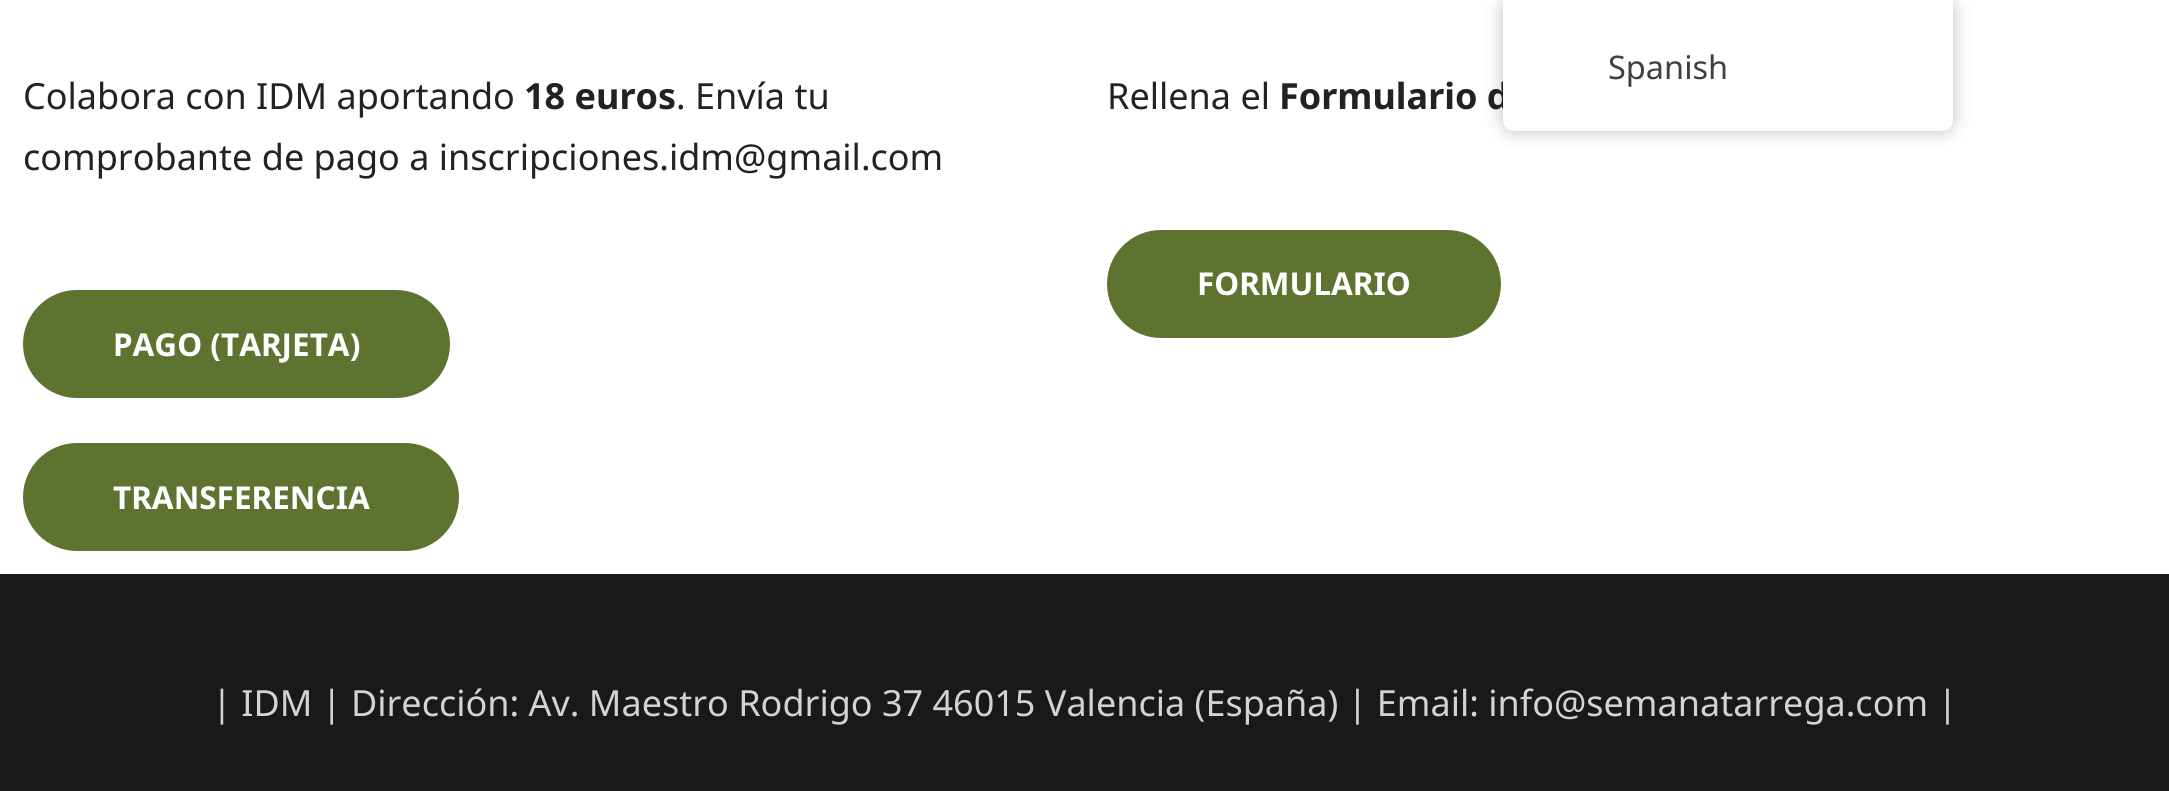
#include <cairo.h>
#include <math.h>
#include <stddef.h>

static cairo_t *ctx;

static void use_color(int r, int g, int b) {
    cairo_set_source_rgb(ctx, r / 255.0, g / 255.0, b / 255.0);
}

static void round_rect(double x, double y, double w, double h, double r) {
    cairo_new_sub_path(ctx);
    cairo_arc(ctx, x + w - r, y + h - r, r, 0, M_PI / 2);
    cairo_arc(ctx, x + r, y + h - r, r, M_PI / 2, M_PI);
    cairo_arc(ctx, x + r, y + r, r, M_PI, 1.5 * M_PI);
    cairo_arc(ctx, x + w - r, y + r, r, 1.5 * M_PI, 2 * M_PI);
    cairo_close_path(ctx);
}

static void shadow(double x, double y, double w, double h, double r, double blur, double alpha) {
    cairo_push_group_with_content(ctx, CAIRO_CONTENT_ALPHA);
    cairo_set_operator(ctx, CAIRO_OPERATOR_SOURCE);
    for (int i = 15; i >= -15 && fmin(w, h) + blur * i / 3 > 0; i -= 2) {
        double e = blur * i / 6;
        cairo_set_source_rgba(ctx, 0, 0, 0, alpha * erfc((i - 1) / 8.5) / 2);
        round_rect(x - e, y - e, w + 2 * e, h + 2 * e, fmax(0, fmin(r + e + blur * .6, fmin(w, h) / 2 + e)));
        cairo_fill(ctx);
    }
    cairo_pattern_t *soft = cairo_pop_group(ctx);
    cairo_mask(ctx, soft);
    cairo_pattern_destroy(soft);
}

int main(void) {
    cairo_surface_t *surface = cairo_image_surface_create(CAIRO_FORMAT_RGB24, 2169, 791);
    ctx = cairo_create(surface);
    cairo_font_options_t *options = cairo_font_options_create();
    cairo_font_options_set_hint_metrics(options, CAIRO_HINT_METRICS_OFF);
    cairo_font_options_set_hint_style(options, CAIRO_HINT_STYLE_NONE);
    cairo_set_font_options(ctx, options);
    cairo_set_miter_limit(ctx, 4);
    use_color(255, 255, 255);
    cairo_paint(ctx);
    use_color(0, 0, 0);
    shadow(1503, 0, 450, 131, 11, 9, 0.25);
    cairo_select_font_face(ctx, "Noto Sans", CAIRO_FONT_SLANT_NORMAL, CAIRO_FONT_WEIGHT_BOLD);
    cairo_set_font_size(ctx, 36);
    use_color(34, 34, 34);
    cairo_move_to(ctx, 1279, 109);
    cairo_show_text(ctx, "Formulario d");
    use_color(255, 255, 255);
    cairo_new_path(ctx);
    cairo_move_to(ctx, 1503, 0);
    cairo_line_to(ctx, 1953, 0);
    cairo_line_to(ctx, 1953, 120);
    cairo_curve_to(ctx, 1953, 126, 1948, 131, 1942, 131);
    cairo_line_to(ctx, 1514, 131);
    cairo_curve_to(ctx, 1508, 131, 1503, 126, 1503, 120);
    cairo_close_path(ctx);
    cairo_fill(ctx);
    cairo_select_font_face(ctx, "Noto Sans", CAIRO_FONT_SLANT_NORMAL, CAIRO_FONT_WEIGHT_NORMAL);
    cairo_set_font_size(ctx, 32.5);
    use_color(64, 64, 64);
    cairo_move_to(ctx, 1608, 79);
    cairo_show_text(ctx, "Spanish");
    cairo_set_font_size(ctx, 36);
    use_color(34, 34, 34);
    cairo_move_to(ctx, 23, 109);
    cairo_show_text(ctx, "Colabora con IDM aportando");
    cairo_select_font_face(ctx, "Noto Sans", CAIRO_FONT_SLANT_NORMAL, CAIRO_FONT_WEIGHT_BOLD);
    cairo_move_to(ctx, 524, 109);
    cairo_show_text(ctx, "18 euros");
    cairo_select_font_face(ctx, "Noto Sans", CAIRO_FONT_SLANT_NORMAL, CAIRO_FONT_WEIGHT_NORMAL);
    cairo_move_to(ctx, 676, 109);
    cairo_show_text(ctx, ". Envía tu");
    cairo_move_to(ctx, 23, 170);
    cairo_show_text(ctx, "comprobante de pago a inscripciones.idm@gmail.com");
    use_color(93, 115, 47);
    round_rect(23, 290, 427, 108, 54);
    cairo_fill(ctx);
    cairo_select_font_face(ctx, "Noto Sans", CAIRO_FONT_SLANT_NORMAL, CAIRO_FONT_WEIGHT_BOLD);
    cairo_set_font_size(ctx, 31.5);
    use_color(255, 255, 255);
    cairo_move_to(ctx, 113, 356);
    cairo_show_text(ctx, "PAGO (TARJETA)");
    use_color(93, 115, 47);
    round_rect(23, 443, 436, 108, 54);
    cairo_fill(ctx);
    use_color(255, 255, 255);
    cairo_move_to(ctx, 113, 509);
    cairo_show_text(ctx, "TRANSFERENCIA");
    cairo_select_font_face(ctx, "Noto Sans", CAIRO_FONT_SLANT_NORMAL, CAIRO_FONT_WEIGHT_NORMAL);
    cairo_set_font_size(ctx, 36);
    use_color(34, 34, 34);
    cairo_move_to(ctx, 1107, 109);
    cairo_show_text(ctx, "Rellena el");
    use_color(93, 115, 47);
    round_rect(1107, 230, 394, 108, 54);
    cairo_fill(ctx);
    cairo_select_font_face(ctx, "Noto Sans", CAIRO_FONT_SLANT_NORMAL, CAIRO_FONT_WEIGHT_BOLD);
    cairo_set_font_size(ctx, 31.5);
    use_color(255, 255, 255);
    cairo_move_to(ctx, 1197, 295);
    cairo_show_text(ctx, "FORMULARIO");
    use_color(25, 25, 25);
    cairo_rectangle(ctx, 0, 574, 2169, 217);
    cairo_fill(ctx);
    cairo_select_font_face(ctx, "Noto Sans", CAIRO_FONT_SLANT_NORMAL, CAIRO_FONT_WEIGHT_NORMAL);
    cairo_set_font_size(ctx, 36);
    use_color(211, 211, 211);
    cairo_move_to(ctx, 212, 716);
    cairo_show_text(ctx, "| IDM | Dirección: Av. Maestro Rodrigo 37 46015 Valencia (España) | Email: info@semanatarrega.com |");
    cairo_surface_write_to_png(surface, "result.png");
    cairo_font_options_destroy(options);
    cairo_destroy(ctx);
    cairo_surface_destroy(surface);
    return 0;
}
